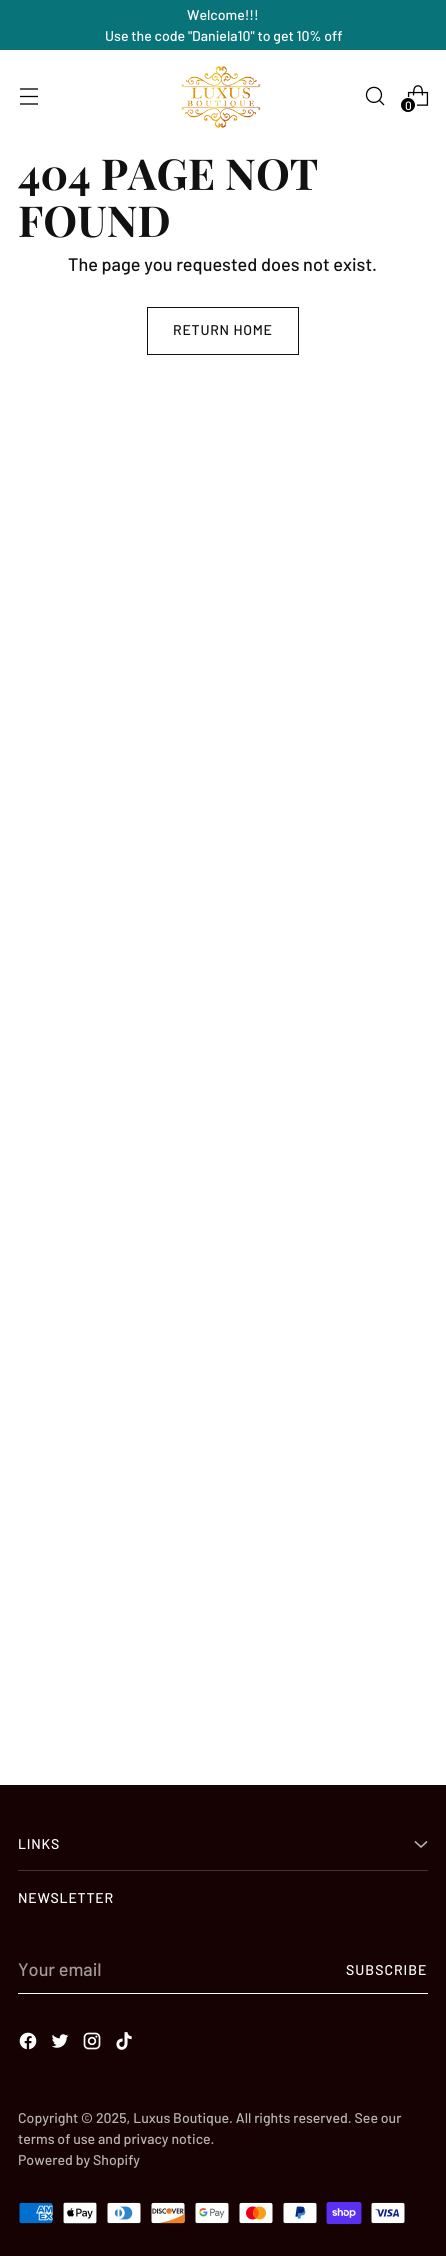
#include <cairo.h>
#include <math.h>
#include <stddef.h>

static cairo_t *ctx;

static void use_color(int r, int g, int b) {
    cairo_set_source_rgb(ctx, r / 255.0, g / 255.0, b / 255.0);
}

static void spaced_text(double x, double y, const char *s, double letter, double word) {
    cairo_move_to(ctx, x, y);
    while (*s) {
        char ch[5] = {0};
        int n = 0;
        do ch[n++] = *s++; while ((*s & 0xC0) == 0x80);
        cairo_show_text(ctx, ch);
        cairo_rel_move_to(ctx, letter + word * (*ch == ' '), 0);
    }
}

static void picture(const char *path, double x, double y, double w, double h) {
    cairo_surface_t *image = cairo_image_surface_create_from_png(path);
    cairo_save(ctx);
    cairo_set_source_surface(ctx, image, x, y);
    cairo_rectangle(ctx, x, y, w, h);
    cairo_fill(ctx);
    cairo_restore(ctx);
    cairo_surface_destroy(image);
}

int main(void) {
    cairo_surface_t *surface = cairo_image_surface_create(CAIRO_FORMAT_RGB24, 446, 2256);
    ctx = cairo_create(surface);
    cairo_font_options_t *options = cairo_font_options_create();
    cairo_font_options_set_hint_metrics(options, CAIRO_HINT_METRICS_OFF);
    cairo_font_options_set_hint_style(options, CAIRO_HINT_STYLE_NONE);
    cairo_set_font_options(ctx, options);
    cairo_set_miter_limit(ctx, 4);
    use_color(255, 255, 255);
    cairo_paint(ctx);
    use_color(8, 116, 121);
    cairo_rectangle(ctx, 0, 0, 446, 50);
    cairo_fill(ctx);
    cairo_select_font_face(ctx, "Barlow Medium", CAIRO_FONT_SLANT_NORMAL, CAIRO_FONT_WEIGHT_NORMAL);
    cairo_set_font_size(ctx, 14.1);
    use_color(255, 255, 255);
    cairo_move_to(ctx, 187, 20);
    cairo_show_text(ctx, "Welcome!!!");
    cairo_move_to(ctx, 105, 41);
    cairo_show_text(ctx, "Use the code \"Daniela10\" to get 10% off");
    cairo_new_path(ctx);
    cairo_move_to(ctx, 20, 96.5);
    cairo_line_to(ctx, 38, 96.5);
    cairo_move_to(ctx, 20, 89);
    cairo_line_to(ctx, 38, 89);
    cairo_move_to(ctx, 20, 104);
    cairo_line_to(ctx, 38, 104);
    use_color(0, 0, 0);
    cairo_set_line_width(ctx, 1.3);
    cairo_stroke(ctx);
    picture("img1.png", 181, 66, 80, 62);
    picture("img2.png", 365, 86, 20, 20);
    picture("img3.png", 407, 85, 22, 21);
    cairo_arc(ctx, 408.5, 105.5, 7.5, 0, 2 * M_PI);
    use_color(255, 255, 255);
    cairo_set_line_width(ctx, 2);
    cairo_stroke(ctx);
    use_color(0, 0, 0);
    cairo_arc(ctx, 408, 105, 7, 0, 2 * M_PI);
    cairo_fill(ctx);
    cairo_set_font_size(ctx, 12);
    use_color(255, 255, 255);
    cairo_move_to(ctx, 405, 110);
    cairo_show_text(ctx, "0");
    cairo_select_font_face(ctx, "Playfair Display", CAIRO_FONT_SLANT_NORMAL, CAIRO_FONT_WEIGHT_BOLD);
    cairo_set_font_size(ctx, 42.75);
    use_color(17, 17, 17);
    cairo_move_to(ctx, 18, 190);
    cairo_show_text(ctx, "404 PAGE NOT");
    cairo_move_to(ctx, 18, 237);
    cairo_show_text(ctx, "FOUND");
    cairo_select_font_face(ctx, "Barlow Medium", CAIRO_FONT_SLANT_NORMAL, CAIRO_FONT_WEIGHT_NORMAL);
    cairo_set_font_size(ctx, 18.1);
    cairo_move_to(ctx, 68, 271);
    cairo_show_text(ctx, "The page you requested does not exist.");
    cairo_rectangle(ctx, 147.5, 307.5, 151, 47);
    cairo_set_line_width(ctx, 1);
    cairo_stroke(ctx);
    cairo_set_font_size(ctx, 14.1);
    spaced_text(173, 335, "RETURN HOME", 0.75, 0);
    use_color(22, 2, 2);
    cairo_rectangle(ctx, 0, 1785, 446, 471);
    cairo_fill(ctx);
    use_color(69, 53, 53);
    cairo_rectangle(ctx, 18, 1870, 410, 1);
    cairo_fill(ctx);
    use_color(255, 255, 255);
    spaced_text(18, 1849, "LINKS", 0.75, 0);
    cairo_new_path(ctx);
    cairo_move_to(ctx, 415, 1841.5);
    cairo_line_to(ctx, 421, 1847);
    cairo_line_to(ctx, 427, 1841.5);
    use_color(185, 179, 179);
    cairo_set_line_width(ctx, 1.6);
    cairo_stroke(ctx);
    use_color(255, 255, 255);
    spaced_text(18, 1903, "NEWSLETTER", 0.75, 0);
    cairo_rectangle(ctx, 18, 1993, 410, 1);
    cairo_fill(ctx);
    cairo_set_font_size(ctx, 18.1);
    use_color(162, 154, 154);
    cairo_move_to(ctx, 18, 1976);
    cairo_show_text(ctx, "Your email");
    cairo_set_font_size(ctx, 14.1);
    use_color(255, 255, 255);
    spaced_text(346, 1975, "SUBSCRIBE", 1, 0);
    picture("img4.png", 19, 2032, 18, 18);
    picture("img5.png", 52, 2034, 17, 14);
    picture("img6.png", 83, 2032, 18, 18);
    picture("img7.png", 116, 2032, 16, 18);
    use_color(185, 179, 179);
    cairo_move_to(ctx, 18, 2123);
    cairo_show_text(ctx, "Copyright © 2025, Luxus Boutique. All rights reserved. See our");
    cairo_move_to(ctx, 18, 2144);
    cairo_show_text(ctx, "terms of use and privacy notice.");
    cairo_move_to(ctx, 18, 2165);
    cairo_show_text(ctx, "Powered by Shopify");
    picture("img8.png", 19, 2202, 34, 22);
    picture("img9.png", 62, 2202, 36, 22);
    picture("img10.png", 107, 2202, 34, 22);
    picture("img11.png", 151, 2202, 34, 22);
    picture("img12.png", 195, 2202, 34, 22);
    picture("img13.png", 239, 2202, 34, 22);
    picture("img14.png", 283, 2202, 34, 22);
    picture("img15.png", 326, 2202, 36, 22);
    picture("img16.png", 371, 2202, 34, 22);
    cairo_surface_write_to_png(surface, "result.png");
    cairo_font_options_destroy(options);
    cairo_destroy(ctx);
    cairo_surface_destroy(surface);
    return 0;
}
